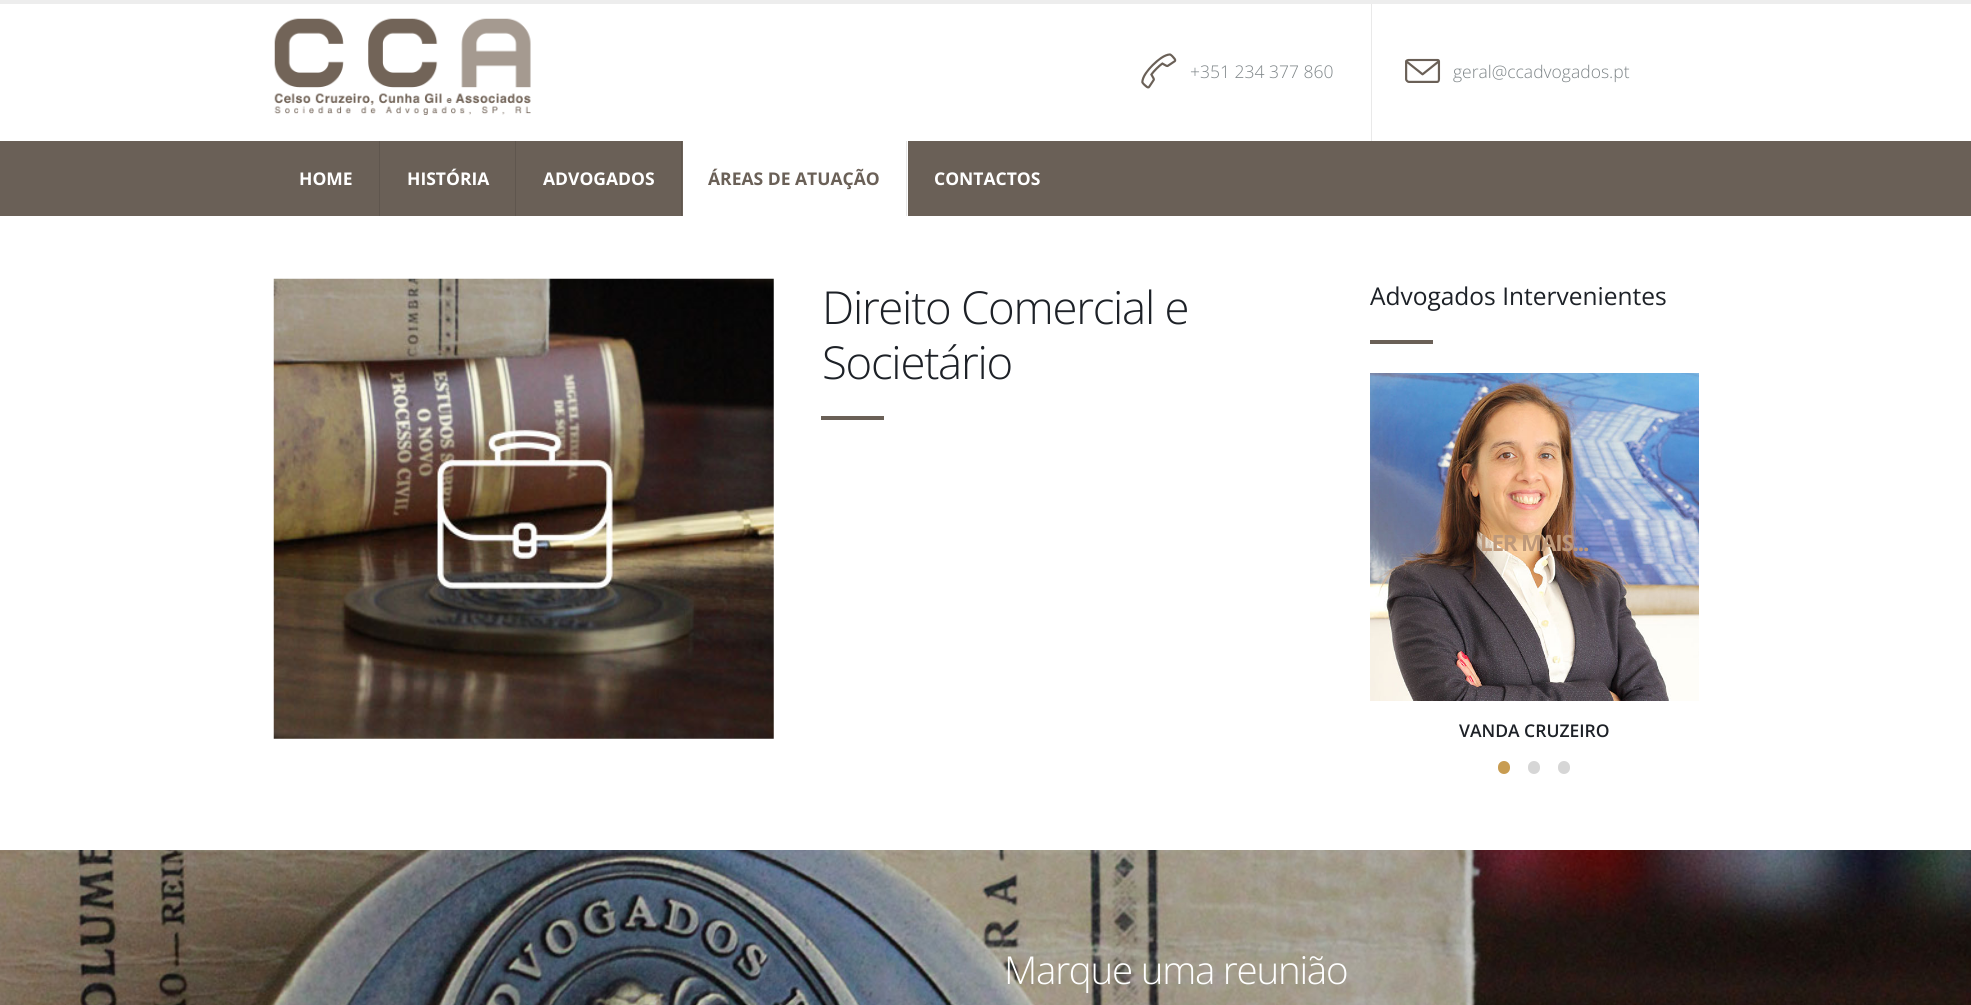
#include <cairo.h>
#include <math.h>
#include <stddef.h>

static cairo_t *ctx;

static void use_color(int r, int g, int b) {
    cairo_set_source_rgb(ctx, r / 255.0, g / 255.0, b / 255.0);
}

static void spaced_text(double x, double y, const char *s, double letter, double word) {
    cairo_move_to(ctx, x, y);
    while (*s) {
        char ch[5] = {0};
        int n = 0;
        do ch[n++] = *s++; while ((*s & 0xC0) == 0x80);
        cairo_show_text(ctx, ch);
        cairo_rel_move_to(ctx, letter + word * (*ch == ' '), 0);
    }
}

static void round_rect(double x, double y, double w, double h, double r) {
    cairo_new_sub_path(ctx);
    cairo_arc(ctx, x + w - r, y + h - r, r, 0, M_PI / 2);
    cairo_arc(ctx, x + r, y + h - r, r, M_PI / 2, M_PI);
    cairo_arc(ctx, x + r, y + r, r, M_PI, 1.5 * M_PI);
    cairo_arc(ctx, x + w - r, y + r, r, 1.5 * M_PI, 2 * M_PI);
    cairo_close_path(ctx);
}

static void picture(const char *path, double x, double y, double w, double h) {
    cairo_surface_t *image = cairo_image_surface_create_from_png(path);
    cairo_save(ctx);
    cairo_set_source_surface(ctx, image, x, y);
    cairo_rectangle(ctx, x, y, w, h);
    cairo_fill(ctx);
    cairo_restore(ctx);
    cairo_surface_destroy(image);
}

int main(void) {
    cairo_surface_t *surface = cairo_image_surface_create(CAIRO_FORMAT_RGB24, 1971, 1005);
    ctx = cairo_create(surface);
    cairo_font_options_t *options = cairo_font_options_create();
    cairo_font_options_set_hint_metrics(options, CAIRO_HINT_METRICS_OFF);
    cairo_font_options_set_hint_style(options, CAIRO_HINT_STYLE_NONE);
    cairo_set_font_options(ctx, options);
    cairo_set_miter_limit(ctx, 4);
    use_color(255, 255, 255);
    cairo_paint(ctx);
    use_color(237, 237, 237);
    cairo_rectangle(ctx, 0, 0, 1971, 4);
    cairo_fill(ctx);
    picture("img1.png", 274, 18, 257, 97);
    use_color(233, 233, 233);
    cairo_rectangle(ctx, 1371, 4, 1, 137);
    cairo_fill(ctx);
    picture("img2.png", 1141, 53, 36, 36);
    cairo_select_font_face(ctx, "Open Sans Light", CAIRO_FONT_SLANT_NORMAL, CAIRO_FONT_WEIGHT_NORMAL);
    cairo_set_font_size(ctx, 17.5);
    use_color(126, 133, 136);
    cairo_move_to(ctx, 1190, 78);
    cairo_show_text(ctx, "+351 234 377 860");
    picture("img3.png", 1405, 58, 36, 25);
    cairo_move_to(ctx, 1453, 78);
    cairo_show_text(ctx, "geral@ccadvogados.pt");
    use_color(106, 96, 87);
    cairo_rectangle(ctx, 0, 141, 1971, 75);
    cairo_fill(ctx);
    use_color(95, 86, 78);
    cairo_rectangle(ctx, 379, 141, 1, 75);
    cairo_fill(ctx);
    cairo_select_font_face(ctx, "Open Sans", CAIRO_FONT_SLANT_NORMAL, CAIRO_FONT_WEIGHT_BOLD);
    use_color(255, 255, 255);
    cairo_move_to(ctx, 299, 185);
    cairo_show_text(ctx, "HOME");
    use_color(95, 86, 78);
    cairo_rectangle(ctx, 515, 141, 1, 75);
    cairo_fill(ctx);
    use_color(255, 255, 255);
    cairo_move_to(ctx, 407, 185);
    cairo_show_text(ctx, "HISTÓRIA");
    use_color(95, 86, 78);
    cairo_rectangle(ctx, 681, 141, 1, 75);
    cairo_fill(ctx);
    use_color(255, 255, 255);
    cairo_move_to(ctx, 543, 185);
    cairo_show_text(ctx, "ADVOGADOS");
    cairo_rectangle(ctx, 683, 141, 225, 75);
    cairo_fill(ctx);
    use_color(230, 230, 230);
    cairo_rectangle(ctx, 906, 141, 1, 75);
    cairo_fill(ctx);
    use_color(106, 96, 87);
    cairo_move_to(ctx, 708, 185);
    cairo_show_text(ctx, "ÁREAS DE ATUAÇÃO");
    use_color(255, 255, 255);
    cairo_move_to(ctx, 934, 185);
    cairo_show_text(ctx, "CONTACTOS");
    picture("img4.png", 273, 278, 501, 461);
    cairo_select_font_face(ctx, "Open Sans Light", CAIRO_FONT_SLANT_NORMAL, CAIRO_FONT_WEIGHT_NORMAL);
    cairo_set_font_size(ctx, 45.5);
    use_color(29, 33, 39);
    spaced_text(822, 324, "Direito Comercial e", -1.25, 0);
    spaced_text(822, 379, "Societário", -1.25, 0);
    use_color(106, 96, 87);
    cairo_rectangle(ctx, 821, 416, 63, 4);
    cairo_fill(ctx);
    cairo_select_font_face(ctx, "Open Sans", CAIRO_FONT_SLANT_NORMAL, CAIRO_FONT_WEIGHT_NORMAL);
    cairo_set_font_size(ctx, 24.5);
    use_color(29, 33, 39);
    cairo_move_to(ctx, 1370, 305);
    cairo_show_text(ctx, "Advogados Intervenientes");
    use_color(106, 96, 87);
    cairo_rectangle(ctx, 1370, 340, 63, 4);
    cairo_fill(ctx);
    picture("img5.png", 1370, 373, 329, 328);
    cairo_select_font_face(ctx, "Open Sans", CAIRO_FONT_SLANT_NORMAL, CAIRO_FONT_WEIGHT_BOLD);
    cairo_set_font_size(ctx, 22.5);
    use_color(190, 152, 121);
    spaced_text(1480, 551, "LER MAIS...", -1.25, 0);
    cairo_select_font_face(ctx, "Open Sans SemiBold", CAIRO_FONT_SLANT_NORMAL, CAIRO_FONT_WEIGHT_NORMAL);
    cairo_set_font_size(ctx, 17.5);
    use_color(29, 33, 39);
    cairo_move_to(ctx, 1459, 737);
    cairo_show_text(ctx, "VANDA CRUZEIRO");
    use_color(200, 156, 81);
    round_rect(1498, 761, 12, 13, 6);
    cairo_fill(ctx);
    use_color(214, 214, 214);
    round_rect(1528, 761, 12, 13, 6);
    cairo_fill(ctx);
    round_rect(1558, 761, 12, 13, 6);
    cairo_fill(ctx);
    picture("img6.png", 0, 850, 1971, 155);
    cairo_select_font_face(ctx, "Open Sans Light", CAIRO_FONT_SLANT_NORMAL, CAIRO_FONT_WEIGHT_NORMAL);
    cairo_set_font_size(ctx, 38.5);
    use_color(255, 255, 255);
    spaced_text(1004, 984, "Marque uma reunião", -1.25, 0);
    cairo_surface_write_to_png(surface, "result.png");
    cairo_font_options_destroy(options);
    cairo_destroy(ctx);
    cairo_surface_destroy(surface);
    return 0;
}
